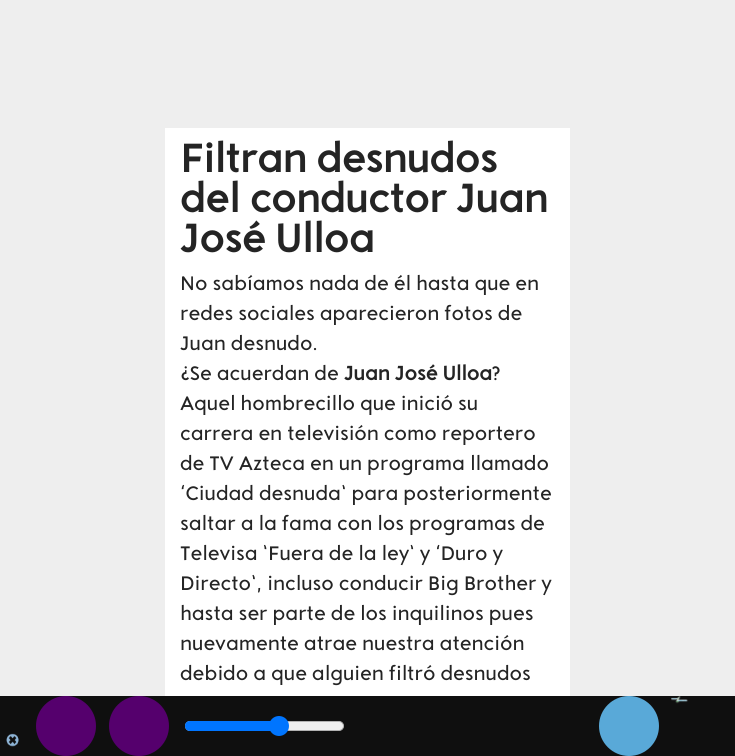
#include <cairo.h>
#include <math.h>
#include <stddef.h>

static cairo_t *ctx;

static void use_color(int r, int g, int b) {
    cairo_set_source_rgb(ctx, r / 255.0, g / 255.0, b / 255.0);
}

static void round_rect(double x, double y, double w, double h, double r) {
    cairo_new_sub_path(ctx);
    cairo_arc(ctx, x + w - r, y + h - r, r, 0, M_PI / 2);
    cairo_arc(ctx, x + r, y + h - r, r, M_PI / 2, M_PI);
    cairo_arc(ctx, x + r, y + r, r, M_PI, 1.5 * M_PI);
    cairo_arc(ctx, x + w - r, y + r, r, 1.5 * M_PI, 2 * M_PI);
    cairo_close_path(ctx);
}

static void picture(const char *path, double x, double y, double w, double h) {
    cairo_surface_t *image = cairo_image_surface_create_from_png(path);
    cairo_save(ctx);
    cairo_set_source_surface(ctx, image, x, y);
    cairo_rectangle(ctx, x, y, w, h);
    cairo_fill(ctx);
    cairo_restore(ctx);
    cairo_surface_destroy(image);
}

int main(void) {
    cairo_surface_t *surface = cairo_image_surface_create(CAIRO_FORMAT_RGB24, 735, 756);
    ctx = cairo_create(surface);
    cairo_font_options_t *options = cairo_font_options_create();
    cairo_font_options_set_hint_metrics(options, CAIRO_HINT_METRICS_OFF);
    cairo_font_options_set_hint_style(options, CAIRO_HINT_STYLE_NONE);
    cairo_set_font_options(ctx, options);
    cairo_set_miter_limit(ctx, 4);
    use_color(238, 238, 238);
    cairo_paint(ctx);
    use_color(255, 255, 255);
    cairo_rectangle(ctx, 165, 128, 405, 628);
    cairo_fill(ctx);
    cairo_select_font_face(ctx, "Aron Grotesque", CAIRO_FONT_SLANT_NORMAL, CAIRO_FONT_WEIGHT_BOLD);
    cairo_set_font_size(ctx, 40);
    use_color(36, 36, 36);
    cairo_move_to(ctx, 180, 172);
    cairo_show_text(ctx, "Filtran desnudos");
    cairo_move_to(ctx, 180, 212);
    cairo_show_text(ctx, "del conductor Juan");
    cairo_move_to(ctx, 180, 252);
    cairo_show_text(ctx, "José Ulloa");
    cairo_select_font_face(ctx, "Aron Grotesque", CAIRO_FONT_SLANT_NORMAL, CAIRO_FONT_WEIGHT_NORMAL);
    cairo_set_font_size(ctx, 20);
    cairo_move_to(ctx, 180, 290);
    cairo_show_text(ctx, "No sabíamos nada de él hasta que en");
    cairo_move_to(ctx, 180, 320);
    cairo_show_text(ctx, "redes sociales aparecieron fotos de");
    cairo_move_to(ctx, 180, 350);
    cairo_show_text(ctx, "Juan desnudo.");
    cairo_move_to(ctx, 180, 380);
    cairo_show_text(ctx, "¿Se acuerdan de");
    cairo_select_font_face(ctx, "Aron Grotesque", CAIRO_FONT_SLANT_NORMAL, CAIRO_FONT_WEIGHT_BOLD);
    cairo_move_to(ctx, 344, 380);
    cairo_show_text(ctx, "Juan José Ulloa");
    cairo_select_font_face(ctx, "Aron Grotesque", CAIRO_FONT_SLANT_NORMAL, CAIRO_FONT_WEIGHT_NORMAL);
    cairo_move_to(ctx, 492, 380);
    cairo_show_text(ctx, "?");
    cairo_move_to(ctx, 180, 410);
    cairo_show_text(ctx, "Aquel hombrecillo que inició su");
    cairo_move_to(ctx, 180, 440);
    cairo_show_text(ctx, "carrera en televisión como reportero");
    cairo_move_to(ctx, 180, 470);
    cairo_show_text(ctx, "de TV Azteca en un programa llamado");
    cairo_move_to(ctx, 180, 500);
    cairo_show_text(ctx, "‘Ciudad desnuda’ para posteriormente");
    cairo_move_to(ctx, 180, 530);
    cairo_show_text(ctx, "saltar a la fama con los programas de");
    cairo_move_to(ctx, 180, 560);
    cairo_show_text(ctx, "Televisa ’Fuera de la ley’ y ‘Duro y");
    cairo_move_to(ctx, 180, 590);
    cairo_show_text(ctx, "Directo’, incluso conducir Big Brother y");
    cairo_move_to(ctx, 180, 620);
    cairo_show_text(ctx, "hasta ser parte de los inquilinos pues");
    cairo_move_to(ctx, 180, 650);
    cairo_show_text(ctx, "nuevamente atrae nuestra atención");
    cairo_move_to(ctx, 180, 680);
    cairo_show_text(ctx, "debido a que alguien filtró desnudos");
    cairo_set_source_rgba(ctx, 0.055, 0.055, 0.055, 0.99);
    cairo_rectangle(ctx, 0, 696, 735, 60);
    cairo_fill(ctx);
    use_color(85, 0, 109);
    cairo_arc(ctx, 66, 726, 30, 0, 2 * M_PI);
    cairo_fill(ctx);
    cairo_arc(ctx, 139, 726, 30, 0, 2 * M_PI);
    cairo_fill(ctx);
    use_color(239, 239, 239);
    round_rect(185.5, 721.5, 158, 9, 4.5);
    cairo_fill_preserve(ctx);
    use_color(178, 178, 178);
    cairo_set_line_width(ctx, 1);
    cairo_stroke(ctx);
    use_color(0, 117, 255);
    cairo_new_path(ctx);
    cairo_move_to(ctx, 190, 721);
    cairo_line_to(ctx, 279, 721);
    cairo_line_to(ctx, 279, 731);
    cairo_line_to(ctx, 190, 731);
    cairo_curve_to(ctx, 187, 731, 185, 729, 185, 726);
    cairo_curve_to(ctx, 185, 723, 187, 721, 190, 721);
    cairo_close_path(ctx);
    cairo_fill(ctx);
    cairo_arc(ctx, 279, 726, 10, 0, 2 * M_PI);
    cairo_fill(ctx);
    use_color(89, 169, 216);
    cairo_arc(ctx, 629, 726, 30, 0, 2 * M_PI);
    cairo_fill(ctx);
    picture("img1.png", 671, 696, 17, 8);
    picture("img2.png", 6, 733, 13, 14);
    cairo_surface_write_to_png(surface, "result.png");
    cairo_font_options_destroy(options);
    cairo_destroy(ctx);
    cairo_surface_destroy(surface);
    return 0;
}
